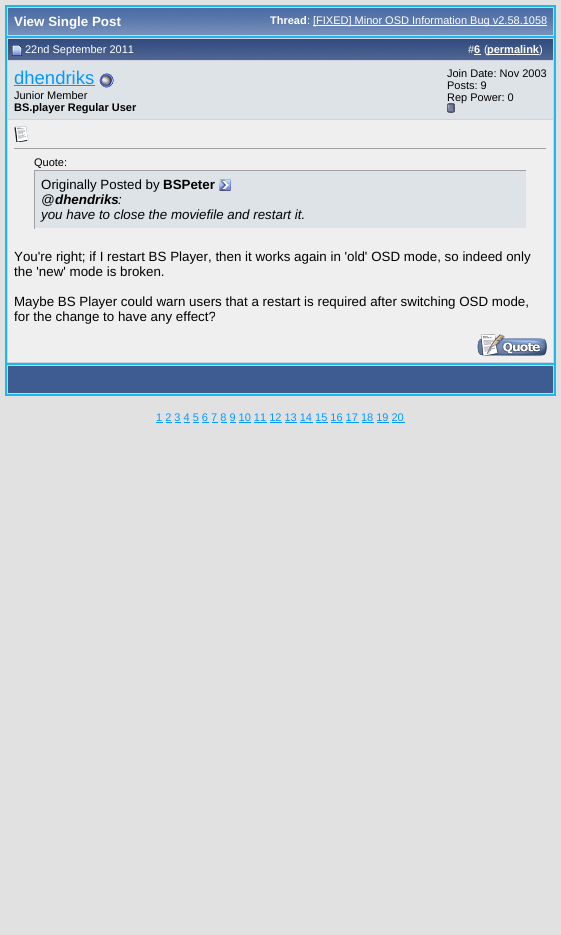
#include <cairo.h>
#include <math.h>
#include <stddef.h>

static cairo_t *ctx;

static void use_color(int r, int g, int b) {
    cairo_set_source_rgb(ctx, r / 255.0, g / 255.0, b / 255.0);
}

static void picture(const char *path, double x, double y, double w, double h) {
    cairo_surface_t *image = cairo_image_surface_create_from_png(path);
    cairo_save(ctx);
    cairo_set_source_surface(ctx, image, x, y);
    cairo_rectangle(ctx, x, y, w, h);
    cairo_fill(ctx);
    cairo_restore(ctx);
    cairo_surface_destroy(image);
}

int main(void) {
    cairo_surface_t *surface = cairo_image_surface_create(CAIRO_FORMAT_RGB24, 561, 935);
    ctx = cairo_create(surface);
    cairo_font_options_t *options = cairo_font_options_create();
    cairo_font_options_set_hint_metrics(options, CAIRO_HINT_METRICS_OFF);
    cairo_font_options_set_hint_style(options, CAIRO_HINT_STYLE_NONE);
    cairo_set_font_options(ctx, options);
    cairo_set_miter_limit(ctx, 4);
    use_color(225, 225, 226);
    cairo_paint(ctx);
    use_color(209, 209, 225);
    cairo_rectangle(ctx, 7, 7, 547, 29);
    cairo_fill(ctx);
    use_color(25, 186, 237);
    cairo_rectangle(ctx, 5, 5, 551, 2);
    cairo_fill(ctx);
    cairo_rectangle(ctx, 554, 5, 2, 31);
    cairo_fill(ctx);
    cairo_rectangle(ctx, 5, 5, 2, 31);
    cairo_fill(ctx);
    picture("img1.png", 8, 8, 545, 27);
    cairo_select_font_face(ctx, "Liberation Sans", CAIRO_FONT_SLANT_NORMAL, CAIRO_FONT_WEIGHT_BOLD);
    cairo_set_font_size(ctx, 13.35);
    use_color(255, 255, 255);
    cairo_move_to(ctx, 14, 26);
    cairo_show_text(ctx, "View Single Post");
    cairo_set_font_size(ctx, 11);
    cairo_move_to(ctx, 270, 24);
    cairo_show_text(ctx, "Thread");
    cairo_select_font_face(ctx, "Liberation Sans", CAIRO_FONT_SLANT_NORMAL, CAIRO_FONT_WEIGHT_NORMAL);
    cairo_move_to(ctx, 307, 24);
    cairo_show_text(ctx, ":");
    cairo_rectangle(ctx, 313, 25, 234, 1);
    cairo_fill(ctx);
    cairo_move_to(ctx, 313, 24);
    cairo_show_text(ctx, "[FIXED] Minor OSD Information Bug v2.58.1058");
    use_color(209, 209, 225);
    cairo_rectangle(ctx, 6, 37, 549, 327);
    cairo_fill_preserve(ctx);
    use_color(25, 186, 237);
    cairo_stroke(ctx);
    picture("img2.png", 8, 39, 545, 21);
    picture("img3.png", 12, 45, 10, 11);
    use_color(255, 255, 255);
    cairo_move_to(ctx, 25, 53);
    cairo_show_text(ctx, "22nd September 2011");
    cairo_move_to(ctx, 468, 53);
    cairo_show_text(ctx, "#");
    cairo_select_font_face(ctx, "Liberation Sans", CAIRO_FONT_SLANT_NORMAL, CAIRO_FONT_WEIGHT_BOLD);
    cairo_move_to(ctx, 474, 53);
    cairo_show_text(ctx, "6");
    cairo_rectangle(ctx, 474, 54, 7, 1);
    cairo_fill(ctx);
    cairo_select_font_face(ctx, "Liberation Sans", CAIRO_FONT_SLANT_NORMAL, CAIRO_FONT_WEIGHT_NORMAL);
    cairo_move_to(ctx, 484, 53);
    cairo_show_text(ctx, "(");
    cairo_rectangle(ctx, 487, 54, 52, 1);
    cairo_fill(ctx);
    cairo_select_font_face(ctx, "Liberation Sans", CAIRO_FONT_SLANT_NORMAL, CAIRO_FONT_WEIGHT_BOLD);
    cairo_move_to(ctx, 487, 53);
    cairo_show_text(ctx, "permalink");
    cairo_select_font_face(ctx, "Liberation Sans", CAIRO_FONT_SLANT_NORMAL, CAIRO_FONT_WEIGHT_NORMAL);
    cairo_move_to(ctx, 539, 53);
    cairo_show_text(ctx, ")");
    use_color(222, 227, 231);
    cairo_rectangle(ctx, 8, 61, 545, 58);
    cairo_fill(ctx);
    cairo_set_font_size(ctx, 18.5);
    use_color(0, 153, 255);
    cairo_move_to(ctx, 14, 84);
    cairo_show_text(ctx, "dhendriks");
    cairo_rectangle(ctx, 14, 85, 81, 1);
    cairo_fill(ctx);
    picture("img4.png", 99, 73, 15, 15);
    cairo_set_font_size(ctx, 11);
    use_color(0, 0, 0);
    cairo_move_to(ctx, 14, 99);
    cairo_show_text(ctx, "Junior Member");
    cairo_select_font_face(ctx, "Liberation Sans", CAIRO_FONT_SLANT_NORMAL, CAIRO_FONT_WEIGHT_BOLD);
    cairo_move_to(ctx, 14, 111);
    cairo_show_text(ctx, "BS.player Regular User");
    cairo_select_font_face(ctx, "Liberation Sans", CAIRO_FONT_SLANT_NORMAL, CAIRO_FONT_WEIGHT_NORMAL);
    cairo_move_to(ctx, 447, 77);
    cairo_show_text(ctx, "Join Date: Nov 2003");
    cairo_move_to(ctx, 447, 89);
    cairo_show_text(ctx, "Posts: 9");
    cairo_move_to(ctx, 447, 101);
    cairo_show_text(ctx, "Rep Power: 0");
    picture("img5.png", 447, 103, 8, 10);
    use_color(239, 239, 239);
    cairo_rectangle(ctx, 8, 120, 545, 242);
    cairo_fill(ctx);
    picture("img6.png", 14, 126, 15, 16);
    use_color(159, 159, 159);
    cairo_rectangle(ctx, 14, 148, 533, 1);
    cairo_fill(ctx);
    use_color(238, 238, 238);
    cairo_rectangle(ctx, 546, 148, 1, 1);
    cairo_fill(ctx);
    use_color(0, 0, 0);
    cairo_move_to(ctx, 34, 166);
    cairo_show_text(ctx, "Quote:");
    use_color(222, 227, 231);
    cairo_rectangle(ctx, 35, 171, 491, 57);
    cairo_fill(ctx);
    use_color(159, 159, 159);
    cairo_rectangle(ctx, 34, 170, 493, 1);
    cairo_fill(ctx);
    use_color(238, 238, 238);
    cairo_rectangle(ctx, 526, 170, 1, 1);
    cairo_fill(ctx);
    use_color(159, 159, 159);
    cairo_rectangle(ctx, 34, 170, 1, 59);
    cairo_fill(ctx);
    cairo_set_font_size(ctx, 13.35);
    use_color(0, 0, 0);
    cairo_move_to(ctx, 41, 189);
    cairo_show_text(ctx, "Originally Posted by");
    cairo_select_font_face(ctx, "Liberation Sans", CAIRO_FONT_SLANT_NORMAL, CAIRO_FONT_WEIGHT_BOLD);
    cairo_move_to(ctx, 163, 189);
    cairo_show_text(ctx, "BSPeter");
    picture("img7.png", 219, 179, 12, 12);
    cairo_select_font_face(ctx, "Liberation Sans", CAIRO_FONT_SLANT_ITALIC, CAIRO_FONT_WEIGHT_NORMAL);
    cairo_move_to(ctx, 41, 204);
    cairo_show_text(ctx, "@");
    cairo_select_font_face(ctx, "Liberation Sans", CAIRO_FONT_SLANT_ITALIC, CAIRO_FONT_WEIGHT_BOLD);
    cairo_move_to(ctx, 55, 204);
    cairo_show_text(ctx, "dhendriks");
    cairo_select_font_face(ctx, "Liberation Sans", CAIRO_FONT_SLANT_ITALIC, CAIRO_FONT_WEIGHT_NORMAL);
    cairo_move_to(ctx, 118, 204);
    cairo_show_text(ctx, ":");
    cairo_move_to(ctx, 41, 219);
    cairo_show_text(ctx, "you have to close the moviefile and restart it.");
    cairo_select_font_face(ctx, "Liberation Sans", CAIRO_FONT_SLANT_NORMAL, CAIRO_FONT_WEIGHT_NORMAL);
    cairo_move_to(ctx, 14, 261);
    cairo_show_text(ctx, "You're right; if I restart BS Player, then it works again in 'old' OSD mode, so indeed only");
    cairo_move_to(ctx, 14, 276);
    cairo_show_text(ctx, "the 'new' mode is broken.");
    cairo_move_to(ctx, 14, 306);
    cairo_show_text(ctx, "Maybe BS Player could warn users that a restart is required after switching OSD mode,");
    cairo_move_to(ctx, 14, 321);
    cairo_show_text(ctx, "for the change to have any effect?");
    picture("img8.png", 477, 334, 70, 22);
    use_color(209, 209, 225);
    cairo_rectangle(ctx, 7, 365, 547, 29);
    cairo_fill(ctx);
    use_color(25, 186, 237);
    cairo_rectangle(ctx, 554, 365, 2, 31);
    cairo_fill(ctx);
    cairo_rectangle(ctx, 5, 394, 551, 2);
    cairo_fill(ctx);
    cairo_rectangle(ctx, 5, 365, 2, 31);
    cairo_fill(ctx);
    use_color(62, 92, 146);
    cairo_rectangle(ctx, 8, 366, 545, 27);
    cairo_fill(ctx);
    cairo_set_font_size(ctx, 11);
    use_color(0, 153, 255);
    cairo_move_to(ctx, 156, 421);
    cairo_show_text(ctx, "1 2 3 4 5 6 7 8 9 10 11 12 13 14 15 16 17 18 19 20");
    cairo_rectangle(ctx, 156, 422, 7, 1);
    cairo_fill(ctx);
    cairo_rectangle(ctx, 166, 422, 6, 1);
    cairo_fill(ctx);
    cairo_rectangle(ctx, 175, 422, 6, 1);
    cairo_fill(ctx);
    cairo_rectangle(ctx, 184, 422, 6, 1);
    cairo_fill(ctx);
    cairo_rectangle(ctx, 193, 422, 6, 1);
    cairo_fill(ctx);
    cairo_rectangle(ctx, 202, 422, 7, 1);
    cairo_fill(ctx);
    cairo_rectangle(ctx, 212, 422, 6, 1);
    cairo_fill(ctx);
    cairo_rectangle(ctx, 221, 422, 6, 1);
    cairo_fill(ctx);
    cairo_rectangle(ctx, 230, 422, 6, 1);
    cairo_fill(ctx);
    cairo_rectangle(ctx, 239, 422, 12, 1);
    cairo_fill(ctx);
    cairo_rectangle(ctx, 254, 422, 13, 1);
    cairo_fill(ctx);
    cairo_rectangle(ctx, 270, 422, 12, 1);
    cairo_fill(ctx);
    cairo_rectangle(ctx, 285, 422, 12, 1);
    cairo_fill(ctx);
    cairo_rectangle(ctx, 300, 422, 13, 1);
    cairo_fill(ctx);
    cairo_rectangle(ctx, 316, 422, 12, 1);
    cairo_fill(ctx);
    cairo_rectangle(ctx, 331, 422, 12, 1);
    cairo_fill(ctx);
    cairo_rectangle(ctx, 346, 422, 13, 1);
    cairo_fill(ctx);
    cairo_rectangle(ctx, 362, 422, 12, 1);
    cairo_fill(ctx);
    cairo_rectangle(ctx, 377, 422, 12, 1);
    cairo_fill(ctx);
    cairo_rectangle(ctx, 392, 422, 13, 1);
    cairo_fill(ctx);
    cairo_surface_write_to_png(surface, "result.png");
    cairo_font_options_destroy(options);
    cairo_destroy(ctx);
    cairo_surface_destroy(surface);
    return 0;
}
